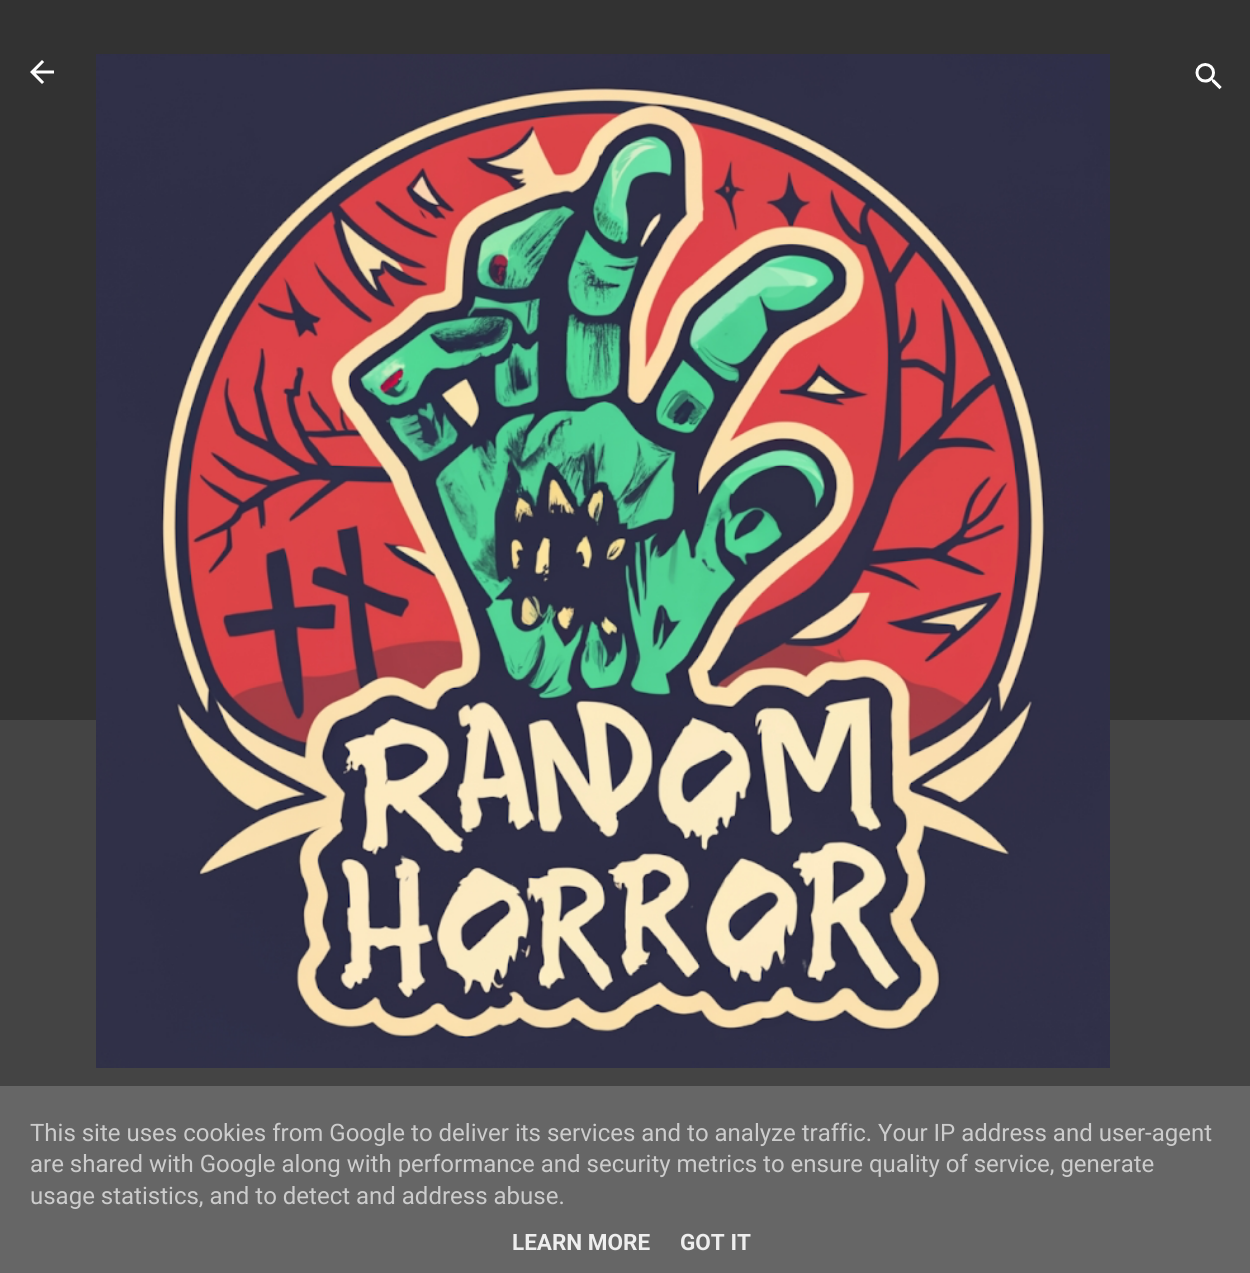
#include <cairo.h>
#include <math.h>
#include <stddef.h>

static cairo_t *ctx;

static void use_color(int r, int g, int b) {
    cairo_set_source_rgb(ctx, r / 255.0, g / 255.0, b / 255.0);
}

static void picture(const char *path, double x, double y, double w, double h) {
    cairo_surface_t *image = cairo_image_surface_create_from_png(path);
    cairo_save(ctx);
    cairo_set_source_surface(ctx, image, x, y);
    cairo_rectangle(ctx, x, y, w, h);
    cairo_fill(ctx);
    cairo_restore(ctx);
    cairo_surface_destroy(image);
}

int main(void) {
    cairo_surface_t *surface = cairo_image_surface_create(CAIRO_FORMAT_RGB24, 1250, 1273);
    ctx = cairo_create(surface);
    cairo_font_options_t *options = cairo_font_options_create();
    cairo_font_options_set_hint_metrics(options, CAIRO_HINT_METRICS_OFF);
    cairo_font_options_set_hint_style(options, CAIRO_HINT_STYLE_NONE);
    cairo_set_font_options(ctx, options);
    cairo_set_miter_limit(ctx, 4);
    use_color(68, 68, 68);
    cairo_paint(ctx);
    use_color(50, 50, 50);
    cairo_rectangle(ctx, 0, 0, 1250, 720);
    cairo_fill(ctx);
    picture("img1.png", 30, 60, 24, 24);
    picture("img2.png", 96, 54, 1014, 1014);
    picture("img3.png", 1195, 63, 27, 27);
    use_color(102, 102, 102);
    cairo_rectangle(ctx, 0, 1086, 1250, 187);
    cairo_fill(ctx);
    cairo_select_font_face(ctx, "Roboto", CAIRO_FONT_SLANT_NORMAL, CAIRO_FONT_WEIGHT_NORMAL);
    cairo_set_font_size(ctx, 24);
    use_color(204, 204, 204);
    cairo_move_to(ctx, 30, 1141);
    cairo_show_text(ctx, "This site uses cookies from Google to deliver its services and to analyze traffic. Your IP address and user-agent");
    cairo_move_to(ctx, 30, 1172);
    cairo_show_text(ctx, "are shared with Google along with performance and security metrics to ensure quality of service, generate");
    cairo_move_to(ctx, 30, 1204);
    cairo_show_text(ctx, "usage statistics, and to detect and address abuse.");
    cairo_select_font_face(ctx, "Roboto", CAIRO_FONT_SLANT_NORMAL, CAIRO_FONT_WEIGHT_BOLD);
    cairo_set_font_size(ctx, 22.5);
    use_color(238, 238, 238);
    cairo_move_to(ctx, 512, 1250);
    cairo_show_text(ctx, "LEARN MORE");
    cairo_move_to(ctx, 680, 1250);
    cairo_show_text(ctx, "GOT IT");
    cairo_surface_write_to_png(surface, "result.png");
    cairo_font_options_destroy(options);
    cairo_destroy(ctx);
    cairo_surface_destroy(surface);
    return 0;
}
